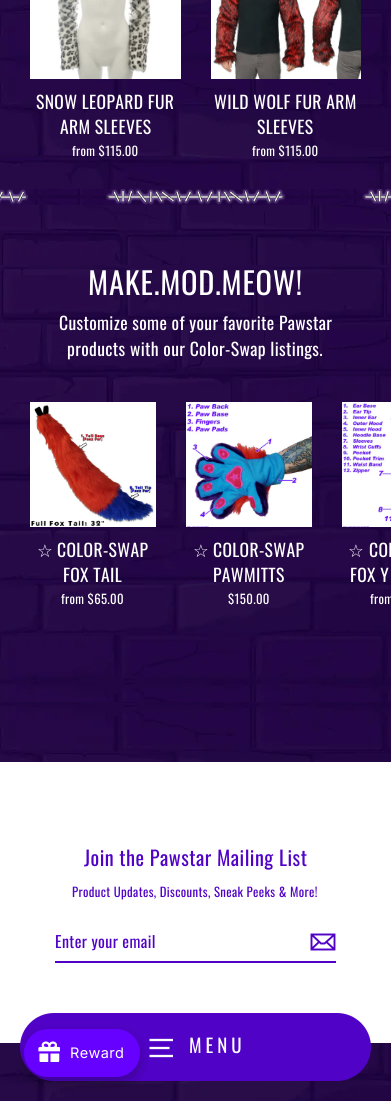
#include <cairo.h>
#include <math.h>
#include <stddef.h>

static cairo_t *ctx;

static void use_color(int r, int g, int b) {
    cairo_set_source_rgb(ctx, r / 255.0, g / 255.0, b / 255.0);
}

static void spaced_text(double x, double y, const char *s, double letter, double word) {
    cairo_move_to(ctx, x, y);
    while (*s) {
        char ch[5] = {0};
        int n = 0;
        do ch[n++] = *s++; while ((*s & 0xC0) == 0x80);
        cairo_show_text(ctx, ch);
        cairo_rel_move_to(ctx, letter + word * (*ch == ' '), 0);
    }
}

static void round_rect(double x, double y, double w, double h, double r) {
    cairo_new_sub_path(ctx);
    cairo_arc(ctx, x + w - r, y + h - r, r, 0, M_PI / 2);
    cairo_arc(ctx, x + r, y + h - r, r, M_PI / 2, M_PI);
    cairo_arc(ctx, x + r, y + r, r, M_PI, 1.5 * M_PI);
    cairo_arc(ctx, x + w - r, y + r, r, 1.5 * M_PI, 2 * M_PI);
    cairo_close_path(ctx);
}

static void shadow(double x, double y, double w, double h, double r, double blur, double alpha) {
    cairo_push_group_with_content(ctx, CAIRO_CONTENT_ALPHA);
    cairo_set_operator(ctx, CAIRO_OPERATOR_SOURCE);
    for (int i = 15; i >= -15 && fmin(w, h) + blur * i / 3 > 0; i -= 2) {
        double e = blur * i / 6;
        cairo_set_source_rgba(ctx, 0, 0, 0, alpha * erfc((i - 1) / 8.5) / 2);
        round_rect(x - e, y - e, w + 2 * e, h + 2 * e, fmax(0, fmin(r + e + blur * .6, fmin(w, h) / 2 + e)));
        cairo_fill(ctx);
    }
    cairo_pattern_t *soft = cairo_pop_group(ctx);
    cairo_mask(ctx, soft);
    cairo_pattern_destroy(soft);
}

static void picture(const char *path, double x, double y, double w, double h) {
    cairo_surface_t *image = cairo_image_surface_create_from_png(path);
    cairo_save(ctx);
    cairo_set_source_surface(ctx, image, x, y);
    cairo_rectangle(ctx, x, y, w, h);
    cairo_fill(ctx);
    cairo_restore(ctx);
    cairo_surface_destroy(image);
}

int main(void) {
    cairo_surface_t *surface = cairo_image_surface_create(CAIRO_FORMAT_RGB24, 391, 1101);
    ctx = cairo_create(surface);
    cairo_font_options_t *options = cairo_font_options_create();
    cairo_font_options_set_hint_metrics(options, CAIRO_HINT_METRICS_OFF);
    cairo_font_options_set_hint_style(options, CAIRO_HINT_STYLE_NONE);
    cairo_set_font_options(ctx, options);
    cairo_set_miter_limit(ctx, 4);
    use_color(255, 255, 255);
    cairo_paint(ctx);
    picture("img1.png", 0, 205, 391, 557);
    picture("img2.png", 0, 0, 391, 189);
    picture("img3.png", 30, 0, 151, 79);
    cairo_select_font_face(ctx, "Oswald", CAIRO_FONT_SLANT_NORMAL, CAIRO_FONT_WEIGHT_NORMAL);
    cairo_set_font_size(ctx, 17.6);
    use_color(255, 255, 255);
    spaced_text(36, 109, "SNOW LEOPARD FUR", 0.35, 0);
    spaced_text(60, 134, "ARM SLEEVES", 0.35, 0);
    cairo_set_font_size(ctx, 12.75);
    spaced_text(72, 156, "from $115.00", 0.35, 0);
    picture("img4.png", 211, 0, 150, 79);
    cairo_set_font_size(ctx, 17.6);
    spaced_text(214, 109, "WILD WOLF FUR ARM", 0.35, 0);
    spaced_text(257, 134, "SLEEVES", 0.35, 0);
    cairo_set_font_size(ctx, 12.75);
    spaced_text(252, 156, "from $115.00", 0.35, 0);
    picture("img5.png", 0, 204, 391, 1);
    picture("img6.png", 0, 189, 391, 16);
    picture("img7.png", 0, 265, 391, 437);
    cairo_set_font_size(ctx, 30.5);
    spaced_text(88, 295, "MAKE.MOD.MEOW!", 0.75, 0);
    cairo_set_font_size(ctx, 17.6);
    spaced_text(59, 330, "Customize some of your favorite Pawstar", 0.35, 0);
    spaced_text(67, 356, "products with our Color-Swap listings.", 0.35, 0);
    picture("img8.png", 30, 402, 126, 125);
    cairo_select_font_face(ctx, "DejaVu Sans", CAIRO_FONT_SLANT_NORMAL, CAIRO_FONT_WEIGHT_NORMAL);
    spaced_text(37, 557, "☆", 0.35, 0);
    cairo_select_font_face(ctx, "Oswald", CAIRO_FONT_SLANT_NORMAL, CAIRO_FONT_WEIGHT_NORMAL);
    spaced_text(57, 557, "COLOR-SWAP", 0.35, 0);
    spaced_text(63, 582, "FOX TAIL", 0.35, 0);
    cairo_set_font_size(ctx, 12.75);
    spaced_text(61, 604, "from $65.00", 0.35, 0);
    picture("img9.png", 186, 402, 126, 125);
    cairo_select_font_face(ctx, "DejaVu Sans", CAIRO_FONT_SLANT_NORMAL, CAIRO_FONT_WEIGHT_NORMAL);
    cairo_set_font_size(ctx, 17.6);
    spaced_text(193, 557, "☆", 0.35, 0);
    cairo_select_font_face(ctx, "Oswald", CAIRO_FONT_SLANT_NORMAL, CAIRO_FONT_WEIGHT_NORMAL);
    spaced_text(213, 557, "COLOR-SWAP", 0.35, 0);
    spaced_text(213, 582, "PAWMITTS", 0.35, 0);
    cairo_set_font_size(ctx, 12.75);
    spaced_text(228, 604, "$150.00", 0.35, 0);
    picture("img10.png", 342, 402, 49, 125);
    cairo_select_font_face(ctx, "DejaVu Sans", CAIRO_FONT_SLANT_NORMAL, CAIRO_FONT_WEIGHT_NORMAL);
    cairo_set_font_size(ctx, 17.6);
    spaced_text(348, 557, "☆", 0.35, 0);
    cairo_select_font_face(ctx, "Oswald", CAIRO_FONT_SLANT_NORMAL, CAIRO_FONT_WEIGHT_NORMAL);
    spaced_text(369, 557, "COL", 0.35, 0);
    spaced_text(350, 582, "FOX Y", 0.35, 0);
    cairo_set_font_size(ctx, 12.75);
    spaced_text(370, 604, "from", 0.35, 0);
    picture("img11.png", 0, 1043, 391, 58);
    cairo_set_font_size(ctx, 20.25);
    use_color(81, 2, 199);
    spaced_text(84, 866, "Join the Pawstar Mailing List", 0.5, 0);
    cairo_set_font_size(ctx, 12.75);
    spaced_text(72, 897, "Product Updates, Discounts, Sneak Peeks & More!", 0.35, 0);
    cairo_rectangle(ctx, 55, 961, 281, 2);
    cairo_fill(ctx);
    cairo_set_font_size(ctx, 16);
    spaced_text(55, 948, "Enter your email", 0.4, 0);
    cairo_new_path(ctx);
    cairo_move_to(ctx, 334.5, 949.5);
    cairo_line_to(ctx, 311.5, 949.5);
    cairo_line_to(ctx, 311.5, 934.5);
    cairo_line_to(ctx, 334.5, 934.5);
    cairo_close_path(ctx);
    cairo_move_to(ctx, 311.5, 934.5);
    cairo_line_to(ctx, 321, 943.5);
    cairo_line_to(ctx, 324.5, 943.5);
    cairo_line_to(ctx, 334.5, 934.5);
    cairo_move_to(ctx, 319, 942);
    cairo_line_to(ctx, 311.5, 949);
    cairo_move_to(ctx, 334.5, 949.5);
    cairo_line_to(ctx, 326.5, 942);
    cairo_set_line_width(ctx, 1.9);
    cairo_stroke(ctx);
    round_rect(20, 1013, 351, 68, 34);
    cairo_fill(ctx);
    cairo_new_path(ctx);
    cairo_move_to(ctx, 149.5, 1040);
    cairo_line_to(ctx, 173, 1040);
    cairo_move_to(ctx, 149.5, 1048);
    cairo_line_to(ctx, 169.5, 1048);
    cairo_move_to(ctx, 149.5, 1056);
    cairo_line_to(ctx, 173, 1056);
    use_color(255, 255, 255);
    cairo_set_line_width(ctx, 2.3);
    cairo_stroke(ctx);
    cairo_set_font_size(ctx, 19);
    spaced_text(189, 1053, "MENU", 4, 0);
    use_color(0, 0, 0);
    shadow(24, 1035, 116, 48, 24, 6, 0.25);
    use_color(102, 0, 255);
    round_rect(24, 1029, 116, 48, 24);
    cairo_fill(ctx);
    picture("img12.png", 38, 1041, 22, 21);
    cairo_select_font_face(ctx, "Inter", CAIRO_FONT_SLANT_NORMAL, CAIRO_FONT_WEIGHT_NORMAL);
    cairo_set_font_size(ctx, 14.5);
    use_color(255, 255, 255);
    spaced_text(70, 1058, "Reward", 0.35, 0);
    cairo_surface_write_to_png(surface, "result.png");
    cairo_font_options_destroy(options);
    cairo_destroy(ctx);
    cairo_surface_destroy(surface);
    return 0;
}
